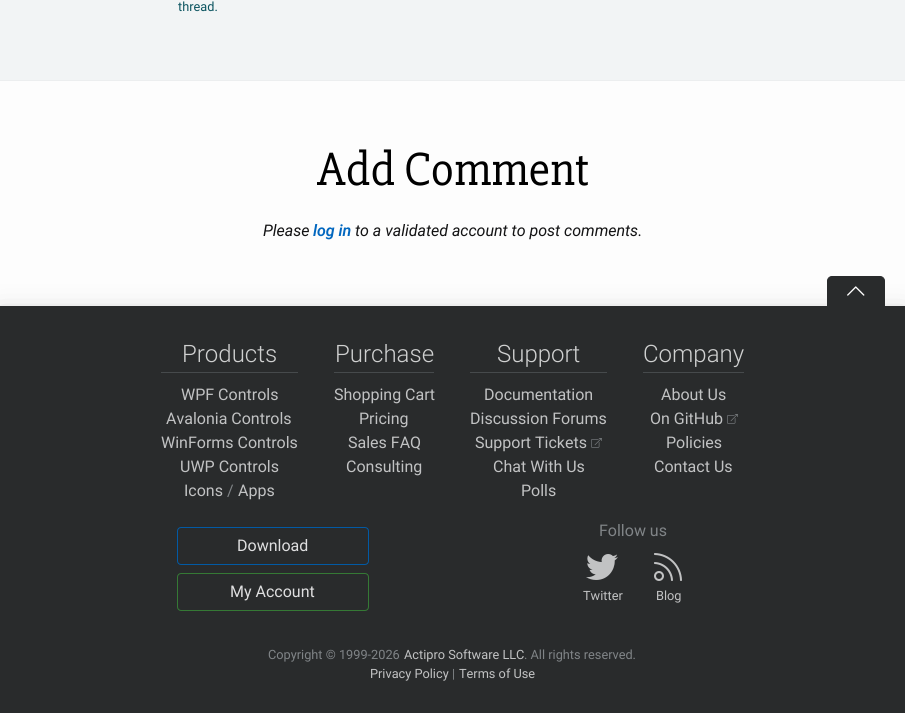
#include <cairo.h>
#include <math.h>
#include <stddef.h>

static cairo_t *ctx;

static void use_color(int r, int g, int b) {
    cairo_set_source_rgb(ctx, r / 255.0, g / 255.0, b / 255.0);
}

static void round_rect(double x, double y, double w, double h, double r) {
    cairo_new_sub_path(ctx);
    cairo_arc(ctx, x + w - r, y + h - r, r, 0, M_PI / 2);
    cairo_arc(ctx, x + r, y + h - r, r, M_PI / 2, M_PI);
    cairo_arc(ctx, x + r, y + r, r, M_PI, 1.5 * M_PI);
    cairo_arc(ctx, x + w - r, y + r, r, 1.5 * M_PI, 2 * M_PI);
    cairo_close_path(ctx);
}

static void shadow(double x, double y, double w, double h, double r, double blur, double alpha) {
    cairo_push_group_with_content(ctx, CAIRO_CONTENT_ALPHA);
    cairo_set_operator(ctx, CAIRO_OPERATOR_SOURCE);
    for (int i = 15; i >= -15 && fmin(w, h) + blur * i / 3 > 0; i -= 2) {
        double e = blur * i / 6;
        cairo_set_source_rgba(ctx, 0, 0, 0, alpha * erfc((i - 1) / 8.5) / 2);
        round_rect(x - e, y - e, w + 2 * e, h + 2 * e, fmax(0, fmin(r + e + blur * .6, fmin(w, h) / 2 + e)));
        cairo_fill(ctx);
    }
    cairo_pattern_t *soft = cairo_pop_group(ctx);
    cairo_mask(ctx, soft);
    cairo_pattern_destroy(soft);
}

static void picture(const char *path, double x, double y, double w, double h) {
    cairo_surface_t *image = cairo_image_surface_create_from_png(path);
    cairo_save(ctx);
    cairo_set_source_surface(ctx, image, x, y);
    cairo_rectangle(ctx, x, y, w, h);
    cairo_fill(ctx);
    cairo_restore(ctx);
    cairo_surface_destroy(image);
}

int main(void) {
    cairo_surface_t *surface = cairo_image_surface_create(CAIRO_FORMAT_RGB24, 905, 713);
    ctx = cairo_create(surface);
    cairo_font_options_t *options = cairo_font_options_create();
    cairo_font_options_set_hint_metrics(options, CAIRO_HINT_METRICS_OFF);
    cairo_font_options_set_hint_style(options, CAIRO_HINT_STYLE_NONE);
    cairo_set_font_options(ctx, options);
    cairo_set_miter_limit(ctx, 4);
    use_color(242, 244, 245);
    cairo_paint(ctx);
    use_color(236, 238, 239);
    cairo_rectangle(ctx, 0, 80, 905, 1);
    cairo_fill(ctx);
    cairo_select_font_face(ctx, "Roboto", CAIRO_FONT_SLANT_NORMAL, CAIRO_FONT_WEIGHT_NORMAL);
    cairo_set_font_size(ctx, 12.75);
    use_color(12, 84, 96);
    cairo_move_to(ctx, 178, 11);
    cairo_show_text(ctx, "thread.");
    use_color(253, 253, 253);
    cairo_rectangle(ctx, 0, 81, 905, 225);
    cairo_fill(ctx);
    cairo_select_font_face(ctx, "Slabo 27px", CAIRO_FONT_SLANT_NORMAL, CAIRO_FONT_WEIGHT_NORMAL);
    cairo_set_font_size(ctx, 48);
    use_color(0, 0, 0);
    cairo_move_to(ctx, 317, 185);
    cairo_show_text(ctx, "Add Comment");
    cairo_select_font_face(ctx, "Roboto", CAIRO_FONT_SLANT_ITALIC, CAIRO_FONT_WEIGHT_NORMAL);
    cairo_set_font_size(ctx, 16);
    use_color(19, 19, 20);
    cairo_move_to(ctx, 263, 236);
    cairo_show_text(ctx, "Please");
    cairo_select_font_face(ctx, "Roboto SemiBold", CAIRO_FONT_SLANT_ITALIC, CAIRO_FONT_WEIGHT_NORMAL);
    use_color(2, 103, 191);
    cairo_move_to(ctx, 313, 236);
    cairo_show_text(ctx, "log in");
    cairo_select_font_face(ctx, "Roboto", CAIRO_FONT_SLANT_ITALIC, CAIRO_FONT_WEIGHT_NORMAL);
    use_color(19, 19, 20);
    cairo_move_to(ctx, 355, 236);
    cairo_show_text(ctx, "to a validated account to post comments.");
    use_color(19, 19, 20);
    shadow(0, 321, 905, 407, 0, 15, 0.4);
    use_color(41, 43, 44);
    cairo_rectangle(ctx, 0, 306, 905, 407);
    cairo_fill(ctx);
    cairo_new_path(ctx);
    cairo_move_to(ctx, 832, 276.5);
    cairo_line_to(ctx, 880, 276.5);
    cairo_curve_to(ctx, 882.5, 276.5, 884.5, 278.5, 884.5, 281);
    cairo_line_to(ctx, 884.5, 305.5);
    cairo_line_to(ctx, 827.5, 305.5);
    cairo_line_to(ctx, 827.5, 281);
    cairo_curve_to(ctx, 827.5, 278.5, 829.5, 276.5, 832, 276.5);
    cairo_close_path(ctx);
    cairo_fill_preserve(ctx);
    cairo_set_line_width(ctx, 1);
    cairo_stroke(ctx);
    picture("img1.png", 847, 286, 18, 10);
    use_color(70, 74, 76);
    cairo_rectangle(ctx, 161, 372, 137, 1);
    cairo_fill(ctx);
    cairo_select_font_face(ctx, "Roboto Light", CAIRO_FONT_SLANT_NORMAL, CAIRO_FONT_WEIGHT_NORMAL);
    cairo_set_font_size(ctx, 24);
    use_color(207, 208, 208);
    cairo_move_to(ctx, 182, 362);
    cairo_show_text(ctx, "Products");
    cairo_select_font_face(ctx, "Roboto", CAIRO_FONT_SLANT_NORMAL, CAIRO_FONT_WEIGHT_NORMAL);
    cairo_set_font_size(ctx, 16);
    use_color(193, 194, 195);
    cairo_move_to(ctx, 181, 400);
    cairo_show_text(ctx, "WPF Controls");
    cairo_move_to(ctx, 166, 424);
    cairo_show_text(ctx, "Avalonia Controls");
    cairo_move_to(ctx, 161, 448);
    cairo_show_text(ctx, "WinForms Controls");
    cairo_move_to(ctx, 180, 472);
    cairo_show_text(ctx, "UWP Controls");
    cairo_move_to(ctx, 184, 496);
    cairo_show_text(ctx, "Icons");
    use_color(128, 132, 135);
    cairo_move_to(ctx, 227, 496);
    cairo_show_text(ctx, "/");
    use_color(193, 194, 195);
    cairo_move_to(ctx, 238, 496);
    cairo_show_text(ctx, "Apps");
    use_color(70, 74, 76);
    cairo_rectangle(ctx, 334, 372, 100, 1);
    cairo_fill(ctx);
    cairo_select_font_face(ctx, "Roboto Light", CAIRO_FONT_SLANT_NORMAL, CAIRO_FONT_WEIGHT_NORMAL);
    cairo_set_font_size(ctx, 24);
    use_color(207, 208, 208);
    cairo_move_to(ctx, 335, 362);
    cairo_show_text(ctx, "Purchase");
    cairo_select_font_face(ctx, "Roboto", CAIRO_FONT_SLANT_NORMAL, CAIRO_FONT_WEIGHT_NORMAL);
    cairo_set_font_size(ctx, 16);
    use_color(193, 194, 195);
    cairo_move_to(ctx, 334, 400);
    cairo_show_text(ctx, "Shopping Cart");
    cairo_move_to(ctx, 359, 424);
    cairo_show_text(ctx, "Pricing");
    cairo_move_to(ctx, 348, 448);
    cairo_show_text(ctx, "Sales FAQ");
    cairo_move_to(ctx, 346, 472);
    cairo_show_text(ctx, "Consulting");
    use_color(70, 74, 76);
    cairo_rectangle(ctx, 470, 372, 137, 1);
    cairo_fill(ctx);
    cairo_select_font_face(ctx, "Roboto Light", CAIRO_FONT_SLANT_NORMAL, CAIRO_FONT_WEIGHT_NORMAL);
    cairo_set_font_size(ctx, 24);
    use_color(207, 208, 208);
    cairo_move_to(ctx, 497, 362);
    cairo_show_text(ctx, "Support");
    cairo_select_font_face(ctx, "Roboto", CAIRO_FONT_SLANT_NORMAL, CAIRO_FONT_WEIGHT_NORMAL);
    cairo_set_font_size(ctx, 16);
    use_color(193, 194, 195);
    cairo_move_to(ctx, 484, 400);
    cairo_show_text(ctx, "Documentation");
    cairo_move_to(ctx, 470, 424);
    cairo_show_text(ctx, "Discussion Forums");
    cairo_move_to(ctx, 475, 448);
    cairo_show_text(ctx, "Support Tickets");
    picture("img2.png", 591, 438, 11, 10);
    cairo_move_to(ctx, 493, 472);
    cairo_show_text(ctx, "Chat With Us");
    cairo_move_to(ctx, 521, 496);
    cairo_show_text(ctx, "Polls");
    use_color(70, 74, 76);
    cairo_rectangle(ctx, 643, 372, 101, 1);
    cairo_fill(ctx);
    cairo_select_font_face(ctx, "Roboto Light", CAIRO_FONT_SLANT_NORMAL, CAIRO_FONT_WEIGHT_NORMAL);
    cairo_set_font_size(ctx, 24);
    use_color(207, 208, 208);
    cairo_move_to(ctx, 643, 362);
    cairo_show_text(ctx, "Company");
    cairo_select_font_face(ctx, "Roboto", CAIRO_FONT_SLANT_NORMAL, CAIRO_FONT_WEIGHT_NORMAL);
    cairo_set_font_size(ctx, 16);
    use_color(193, 194, 195);
    cairo_move_to(ctx, 661, 400);
    cairo_show_text(ctx, "About Us");
    cairo_move_to(ctx, 650, 424);
    cairo_show_text(ctx, "On GitHub");
    picture("img2.png", 727, 414, 11, 10);
    cairo_move_to(ctx, 666, 448);
    cairo_show_text(ctx, "Policies");
    cairo_move_to(ctx, 654, 472);
    cairo_show_text(ctx, "Contact Us");
    round_rect(177.5, 527.5, 191, 37, 3.5);
    use_color(2, 90, 165);
    cairo_stroke(ctx);
    use_color(223, 223, 224);
    cairo_move_to(ctx, 237, 551);
    cairo_show_text(ctx, "Download");
    round_rect(177.5, 573.5, 191, 37, 3.5);
    use_color(53, 121, 53);
    cairo_stroke(ctx);
    use_color(223, 223, 224);
    cairo_move_to(ctx, 230, 597);
    cairo_show_text(ctx, "My Account");
    use_color(128, 132, 135);
    cairo_move_to(ctx, 599, 536);
    cairo_show_text(ctx, "Follow us");
    picture("img3.png", 586, 554, 32, 26);
    cairo_set_font_size(ctx, 12.75);
    use_color(193, 194, 195);
    cairo_move_to(ctx, 583, 600);
    cairo_show_text(ctx, "Twitter");
    picture("img4.png", 654, 553, 28, 28);
    cairo_move_to(ctx, 656, 600);
    cairo_show_text(ctx, "Blog");
    use_color(128, 132, 135);
    cairo_move_to(ctx, 268, 659);
    cairo_show_text(ctx, "Copyright © 1999-2026");
    use_color(193, 194, 195);
    cairo_move_to(ctx, 404, 659);
    cairo_show_text(ctx, "Actipro Software LLC");
    use_color(128, 132, 135);
    cairo_move_to(ctx, 524, 659);
    cairo_show_text(ctx, ". All rights reserved.");
    use_color(193, 194, 195);
    cairo_move_to(ctx, 370, 678);
    cairo_show_text(ctx, "Privacy Policy");
    use_color(128, 132, 135);
    cairo_move_to(ctx, 452, 678);
    cairo_show_text(ctx, "|");
    use_color(193, 194, 195);
    cairo_move_to(ctx, 459, 678);
    cairo_show_text(ctx, "Terms of Use");
    cairo_surface_write_to_png(surface, "result.png");
    cairo_font_options_destroy(options);
    cairo_destroy(ctx);
    cairo_surface_destroy(surface);
    return 0;
}
